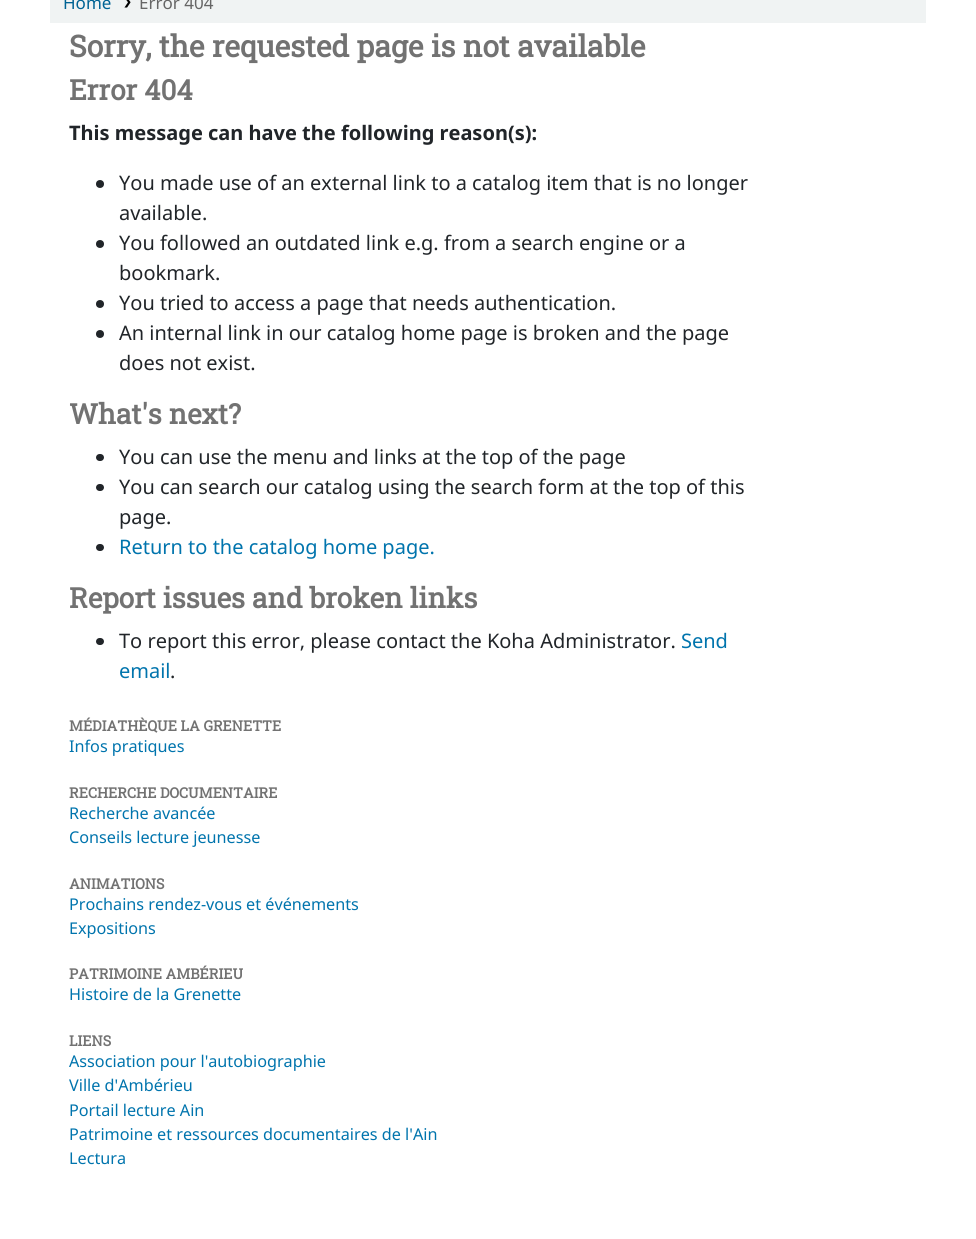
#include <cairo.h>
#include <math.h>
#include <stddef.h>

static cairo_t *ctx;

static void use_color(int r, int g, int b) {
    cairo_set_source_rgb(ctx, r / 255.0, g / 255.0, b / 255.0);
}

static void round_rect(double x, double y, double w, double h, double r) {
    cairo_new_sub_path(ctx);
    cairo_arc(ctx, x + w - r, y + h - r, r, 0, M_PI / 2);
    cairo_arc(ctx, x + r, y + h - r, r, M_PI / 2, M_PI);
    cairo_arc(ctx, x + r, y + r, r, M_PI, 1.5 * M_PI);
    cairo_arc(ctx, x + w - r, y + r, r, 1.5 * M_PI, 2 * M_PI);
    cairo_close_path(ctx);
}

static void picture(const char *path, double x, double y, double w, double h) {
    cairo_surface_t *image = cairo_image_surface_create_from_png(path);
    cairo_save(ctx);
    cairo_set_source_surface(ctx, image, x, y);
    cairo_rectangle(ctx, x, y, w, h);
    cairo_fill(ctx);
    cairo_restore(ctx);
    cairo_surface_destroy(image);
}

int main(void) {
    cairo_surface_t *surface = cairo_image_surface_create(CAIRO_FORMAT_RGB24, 976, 1239);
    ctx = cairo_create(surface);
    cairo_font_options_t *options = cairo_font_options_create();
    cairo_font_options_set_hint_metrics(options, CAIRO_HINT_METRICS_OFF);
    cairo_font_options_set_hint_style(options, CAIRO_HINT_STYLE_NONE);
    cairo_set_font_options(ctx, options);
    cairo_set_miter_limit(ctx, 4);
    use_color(255, 255, 255);
    cairo_paint(ctx);
    use_color(240, 243, 243);
    cairo_rectangle(ctx, 50, 0, 876, 23);
    cairo_fill(ctx);
    cairo_select_font_face(ctx, "Noto Sans", CAIRO_FONT_SLANT_NORMAL, CAIRO_FONT_WEIGHT_NORMAL);
    cairo_set_font_size(ctx, 17);
    use_color(0, 99, 148);
    cairo_move_to(ctx, 63, 9);
    cairo_show_text(ctx, "Home");
    picture("img1.png", 124, 0, 7, 8);
    use_color(102, 102, 102);
    cairo_move_to(ctx, 139, 9);
    cairo_show_text(ctx, "Error 404");
    cairo_select_font_face(ctx, "Roboto Slab", CAIRO_FONT_SLANT_NORMAL, CAIRO_FONT_WEIGHT_BOLD);
    cairo_set_font_size(ctx, 30);
    use_color(114, 114, 114);
    cairo_move_to(ctx, 69, 57);
    cairo_show_text(ctx, "Sorry, the requested page is not available");
    cairo_set_font_size(ctx, 28);
    cairo_move_to(ctx, 69, 100);
    cairo_show_text(ctx, "Error 404");
    cairo_select_font_face(ctx, "Noto Sans", CAIRO_FONT_SLANT_NORMAL, CAIRO_FONT_WEIGHT_BOLD);
    cairo_set_font_size(ctx, 20);
    use_color(33, 37, 41);
    cairo_move_to(ctx, 69, 140);
    cairo_show_text(ctx, "This message can have the following reason(s):");
    cairo_new_path(ctx);
    cairo_arc(ctx, 100, 184, 4, 0, 2 * M_PI);
    cairo_fill(ctx);
    cairo_select_font_face(ctx, "Noto Sans", CAIRO_FONT_SLANT_NORMAL, CAIRO_FONT_WEIGHT_NORMAL);
    cairo_move_to(ctx, 119, 190);
    cairo_show_text(ctx, "You made use of an external link to a catalog item that is no longer");
    cairo_move_to(ctx, 119, 220);
    cairo_show_text(ctx, "available.");
    cairo_new_path(ctx);
    cairo_arc(ctx, 100, 244, 4, 0, 2 * M_PI);
    cairo_fill(ctx);
    cairo_move_to(ctx, 119, 250);
    cairo_show_text(ctx, "You followed an outdated link e.g. from a search engine or a");
    cairo_move_to(ctx, 119, 280);
    cairo_show_text(ctx, "bookmark.");
    cairo_new_path(ctx);
    cairo_arc(ctx, 100, 304, 4, 0, 2 * M_PI);
    cairo_fill(ctx);
    cairo_move_to(ctx, 119, 310);
    cairo_show_text(ctx, "You tried to access a page that needs authentication.");
    cairo_new_path(ctx);
    cairo_arc(ctx, 100, 334, 4, 0, 2 * M_PI);
    cairo_fill(ctx);
    cairo_move_to(ctx, 119, 340);
    cairo_show_text(ctx, "An internal link in our catalog home page is broken and the page");
    cairo_move_to(ctx, 119, 370);
    cairo_show_text(ctx, "does not exist.");
    cairo_select_font_face(ctx, "Roboto Slab", CAIRO_FONT_SLANT_NORMAL, CAIRO_FONT_WEIGHT_BOLD);
    cairo_set_font_size(ctx, 28);
    use_color(114, 114, 114);
    cairo_move_to(ctx, 69, 424);
    cairo_show_text(ctx, "What's next?");
    use_color(33, 37, 41);
    round_rect(96, 454, 8, 7, 3.5);
    cairo_fill(ctx);
    cairo_select_font_face(ctx, "Noto Sans", CAIRO_FONT_SLANT_NORMAL, CAIRO_FONT_WEIGHT_NORMAL);
    cairo_set_font_size(ctx, 20);
    cairo_move_to(ctx, 119, 464);
    cairo_show_text(ctx, "You can use the menu and links at the top of the page");
    round_rect(96, 484, 8, 7, 3.5);
    cairo_fill(ctx);
    cairo_move_to(ctx, 119, 494);
    cairo_show_text(ctx, "You can search our catalog using the search form at the top of this");
    cairo_move_to(ctx, 119, 524);
    cairo_show_text(ctx, "page.");
    round_rect(96, 544, 8, 7, 3.5);
    cairo_fill(ctx);
    use_color(0, 116, 173);
    cairo_move_to(ctx, 119, 554);
    cairo_show_text(ctx, "Return to the catalog home page.");
    cairo_select_font_face(ctx, "Roboto Slab", CAIRO_FONT_SLANT_NORMAL, CAIRO_FONT_WEIGHT_BOLD);
    cairo_set_font_size(ctx, 28);
    use_color(114, 114, 114);
    cairo_move_to(ctx, 69, 608);
    cairo_show_text(ctx, "Report issues and broken links");
    use_color(33, 37, 41);
    round_rect(96, 638, 8, 7, 3.5);
    cairo_fill(ctx);
    cairo_select_font_face(ctx, "Noto Sans", CAIRO_FONT_SLANT_NORMAL, CAIRO_FONT_WEIGHT_NORMAL);
    cairo_set_font_size(ctx, 20);
    cairo_move_to(ctx, 119, 648);
    cairo_show_text(ctx, "To report this error, please contact the Koha Administrator.");
    use_color(0, 116, 173);
    cairo_move_to(ctx, 681, 648);
    cairo_show_text(ctx, "Send");
    cairo_move_to(ctx, 119, 678);
    cairo_show_text(ctx, "email");
    use_color(33, 37, 41);
    cairo_move_to(ctx, 170, 678);
    cairo_show_text(ctx, ".");
    cairo_select_font_face(ctx, "Roboto Slab", CAIRO_FONT_SLANT_NORMAL, CAIRO_FONT_WEIGHT_BOLD);
    cairo_set_font_size(ctx, 14.4);
    use_color(114, 114, 114);
    cairo_move_to(ctx, 69, 731);
    cairo_show_text(ctx, "MÉDIATHÈQUE LA GRENETTE");
    cairo_select_font_face(ctx, "Noto Sans", CAIRO_FONT_SLANT_NORMAL, CAIRO_FONT_WEIGHT_NORMAL);
    cairo_set_font_size(ctx, 16.2);
    use_color(0, 116, 173);
    cairo_move_to(ctx, 69, 752);
    cairo_show_text(ctx, "Infos pratiques");
    cairo_select_font_face(ctx, "Roboto Slab", CAIRO_FONT_SLANT_NORMAL, CAIRO_FONT_WEIGHT_BOLD);
    cairo_set_font_size(ctx, 14.4);
    use_color(114, 114, 114);
    cairo_move_to(ctx, 69, 798);
    cairo_show_text(ctx, "RECHERCHE DOCUMENTAIRE");
    cairo_select_font_face(ctx, "Noto Sans", CAIRO_FONT_SLANT_NORMAL, CAIRO_FONT_WEIGHT_NORMAL);
    cairo_set_font_size(ctx, 16.2);
    use_color(0, 116, 173);
    cairo_move_to(ctx, 69, 819);
    cairo_show_text(ctx, "Recherche avancée");
    cairo_move_to(ctx, 69, 843);
    cairo_show_text(ctx, "Conseils lecture jeunesse");
    cairo_select_font_face(ctx, "Roboto Slab", CAIRO_FONT_SLANT_NORMAL, CAIRO_FONT_WEIGHT_BOLD);
    cairo_set_font_size(ctx, 14.4);
    use_color(114, 114, 114);
    cairo_move_to(ctx, 69, 889);
    cairo_show_text(ctx, "ANIMATIONS");
    cairo_select_font_face(ctx, "Noto Sans", CAIRO_FONT_SLANT_NORMAL, CAIRO_FONT_WEIGHT_NORMAL);
    cairo_set_font_size(ctx, 16.2);
    use_color(0, 116, 173);
    cairo_move_to(ctx, 69, 910);
    cairo_show_text(ctx, "Prochains rendez-vous et événements");
    cairo_move_to(ctx, 69, 934);
    cairo_show_text(ctx, "Expositions");
    cairo_select_font_face(ctx, "Roboto Slab", CAIRO_FONT_SLANT_NORMAL, CAIRO_FONT_WEIGHT_BOLD);
    cairo_set_font_size(ctx, 14.4);
    use_color(114, 114, 114);
    cairo_move_to(ctx, 69, 979);
    cairo_show_text(ctx, "PATRIMOINE AMBÉRIEU");
    cairo_select_font_face(ctx, "Noto Sans", CAIRO_FONT_SLANT_NORMAL, CAIRO_FONT_WEIGHT_NORMAL);
    cairo_set_font_size(ctx, 16.2);
    use_color(0, 116, 173);
    cairo_move_to(ctx, 69, 1000);
    cairo_show_text(ctx, "Histoire de la Grenette");
    cairo_select_font_face(ctx, "Roboto Slab", CAIRO_FONT_SLANT_NORMAL, CAIRO_FONT_WEIGHT_BOLD);
    cairo_set_font_size(ctx, 14.4);
    use_color(114, 114, 114);
    cairo_move_to(ctx, 69, 1046);
    cairo_show_text(ctx, "LIENS");
    cairo_select_font_face(ctx, "Noto Sans", CAIRO_FONT_SLANT_NORMAL, CAIRO_FONT_WEIGHT_NORMAL);
    cairo_set_font_size(ctx, 16.2);
    use_color(0, 116, 173);
    cairo_move_to(ctx, 69, 1067);
    cairo_show_text(ctx, "Association pour l'autobiographie");
    cairo_move_to(ctx, 69, 1091);
    cairo_show_text(ctx, "Ville d'Ambérieu");
    cairo_move_to(ctx, 69, 1116);
    cairo_show_text(ctx, "Portail lecture Ain");
    cairo_move_to(ctx, 69, 1140);
    cairo_show_text(ctx, "Patrimoine et ressources documentaires de l'Ain");
    cairo_move_to(ctx, 69, 1164);
    cairo_show_text(ctx, "Lectura");
    cairo_surface_write_to_png(surface, "result.png");
    cairo_font_options_destroy(options);
    cairo_destroy(ctx);
    cairo_surface_destroy(surface);
    return 0;
}
